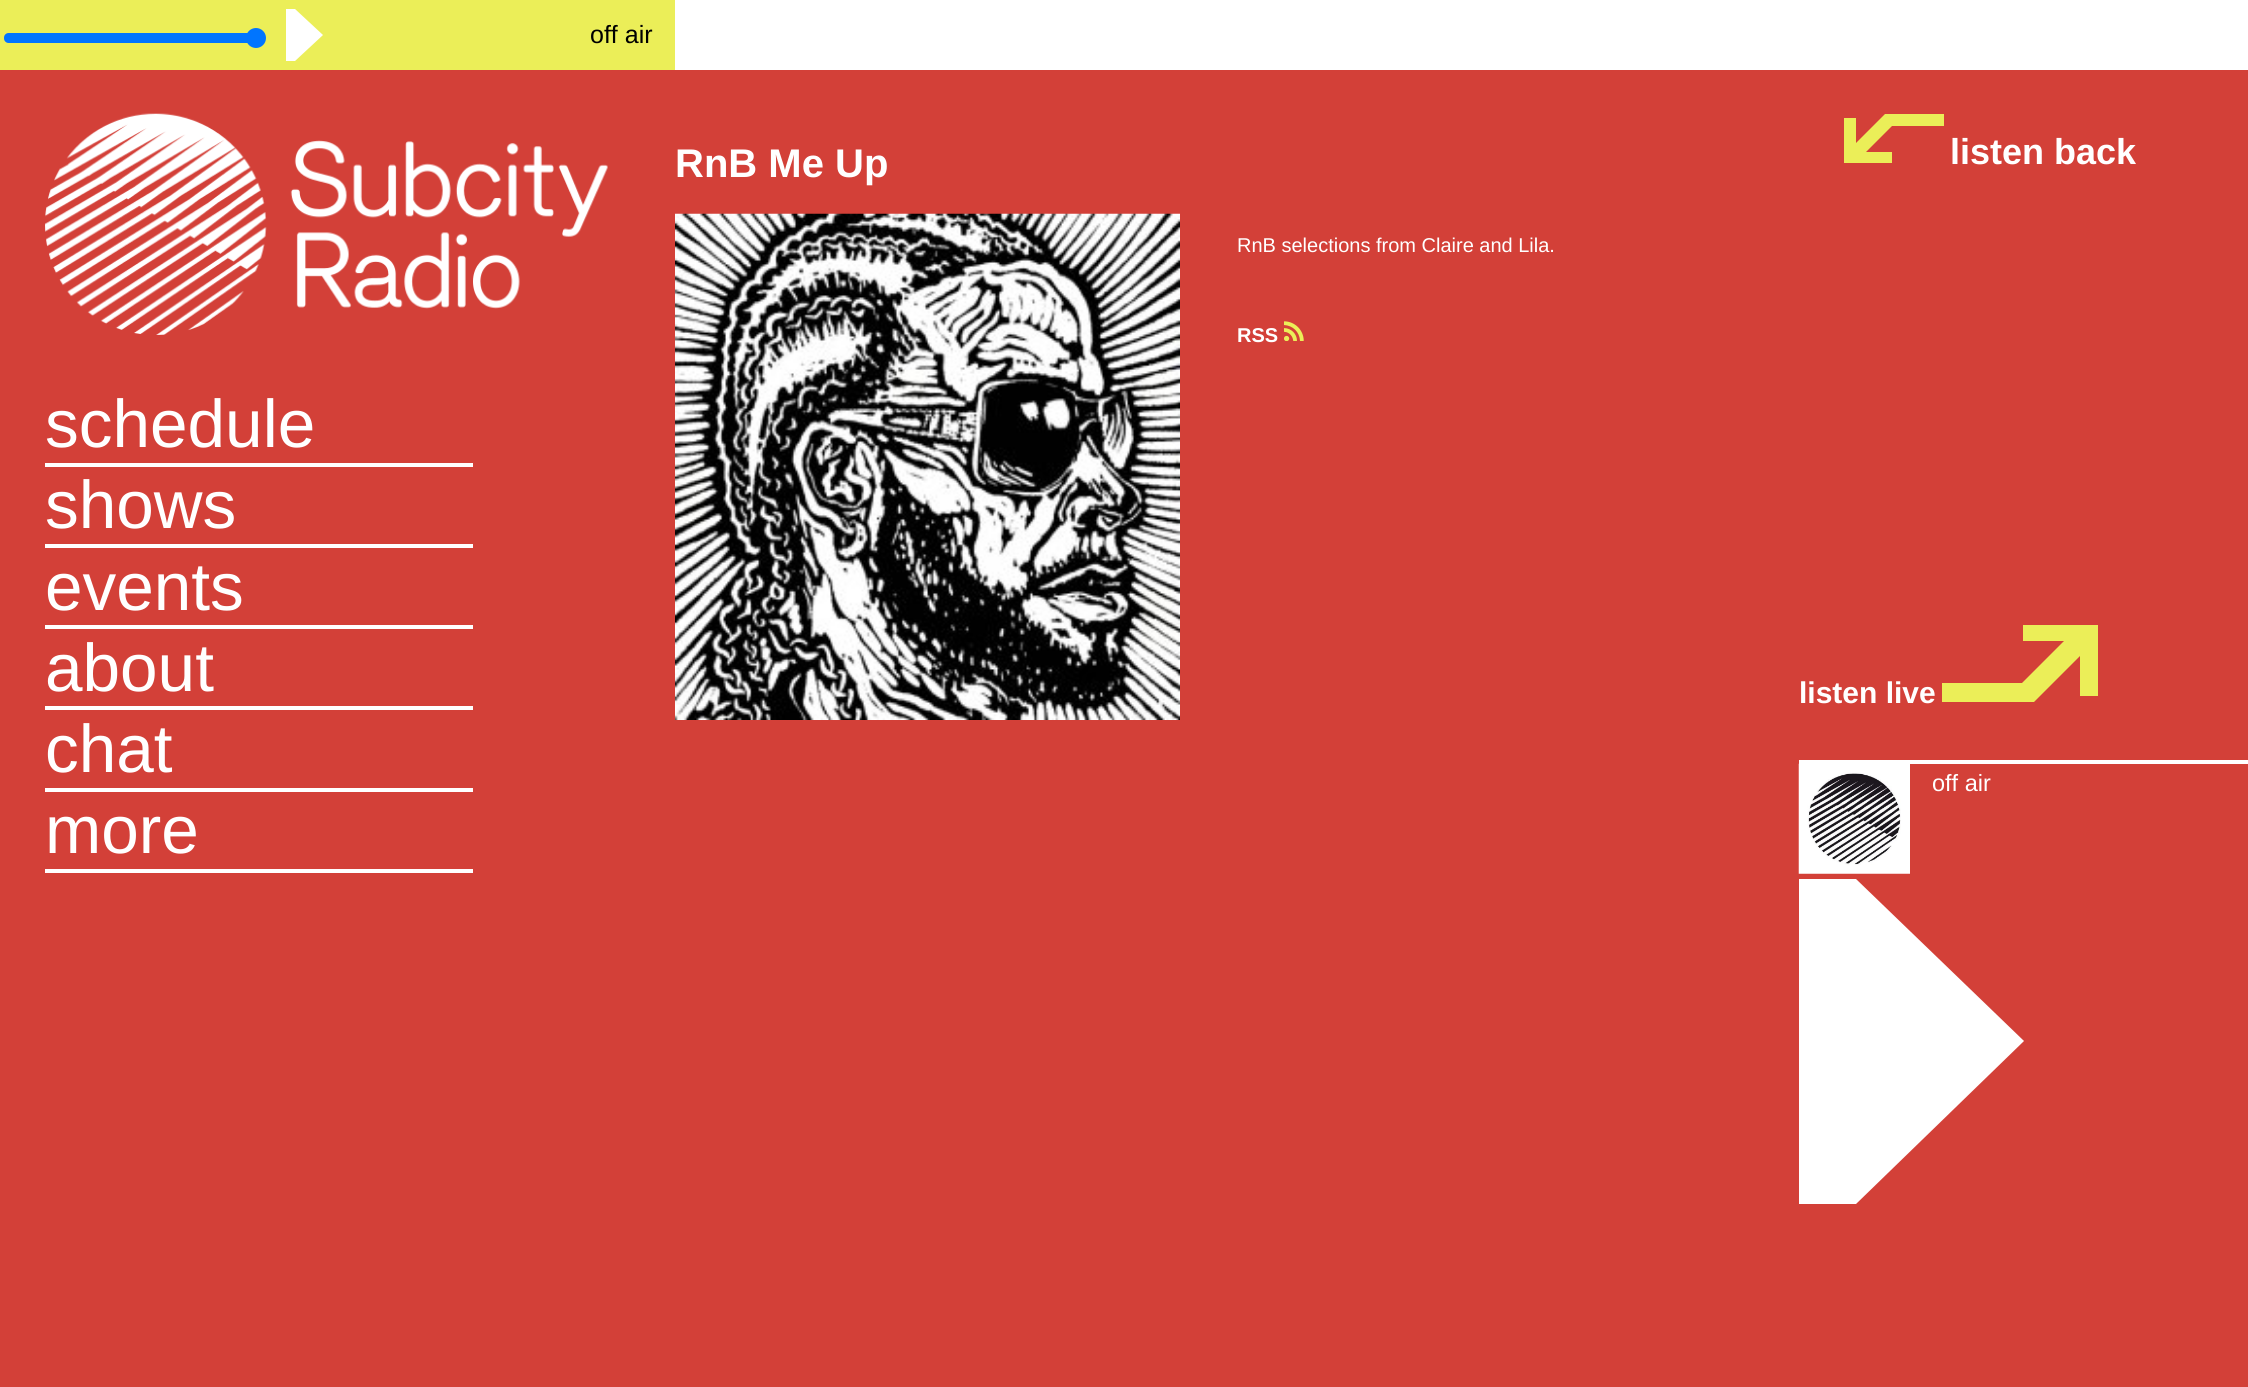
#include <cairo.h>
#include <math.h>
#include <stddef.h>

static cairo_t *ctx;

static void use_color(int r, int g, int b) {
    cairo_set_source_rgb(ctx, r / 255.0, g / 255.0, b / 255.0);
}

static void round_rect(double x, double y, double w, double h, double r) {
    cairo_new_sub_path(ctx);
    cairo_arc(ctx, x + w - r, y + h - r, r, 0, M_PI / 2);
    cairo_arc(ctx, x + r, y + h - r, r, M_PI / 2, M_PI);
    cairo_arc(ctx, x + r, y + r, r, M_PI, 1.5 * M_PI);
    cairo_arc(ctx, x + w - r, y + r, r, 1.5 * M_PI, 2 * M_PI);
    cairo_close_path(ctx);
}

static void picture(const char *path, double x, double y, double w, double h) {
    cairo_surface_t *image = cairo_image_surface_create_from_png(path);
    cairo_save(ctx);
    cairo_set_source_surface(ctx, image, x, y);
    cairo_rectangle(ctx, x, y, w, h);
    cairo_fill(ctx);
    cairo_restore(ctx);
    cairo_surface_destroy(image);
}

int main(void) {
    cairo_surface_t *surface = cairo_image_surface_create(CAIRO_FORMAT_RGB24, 2248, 1387);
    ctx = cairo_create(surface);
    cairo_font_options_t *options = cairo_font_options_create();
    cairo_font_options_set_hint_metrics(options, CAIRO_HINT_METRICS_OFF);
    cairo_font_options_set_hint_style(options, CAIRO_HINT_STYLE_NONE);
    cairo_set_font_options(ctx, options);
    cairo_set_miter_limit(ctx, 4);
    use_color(211, 64, 56);
    cairo_paint(ctx);
    use_color(235, 238, 88);
    cairo_rectangle(ctx, 0, 0, 675, 70);
    cairo_fill(ctx);
    round_rect(4.5, 33.5, 260, 9, 4.5);
    use_color(178, 178, 178);
    cairo_set_line_width(ctx, 1);
    cairo_stroke(ctx);
    use_color(0, 117, 255);
    cairo_new_path(ctx);
    cairo_move_to(ctx, 9, 33);
    cairo_line_to(ctx, 256, 33);
    cairo_line_to(ctx, 256, 43);
    cairo_line_to(ctx, 9, 43);
    cairo_curve_to(ctx, 6, 43, 4, 41, 4, 38);
    cairo_curve_to(ctx, 4, 35, 6, 33, 9, 33);
    cairo_close_path(ctx);
    cairo_fill(ctx);
    cairo_arc(ctx, 256, 38, 10, 0, 2 * M_PI);
    cairo_fill(ctx);
    use_color(255, 255, 255);
    cairo_new_path(ctx);
    cairo_move_to(ctx, 295, 61);
    cairo_line_to(ctx, 286, 61);
    cairo_line_to(ctx, 286, 9);
    cairo_line_to(ctx, 295, 9);
    cairo_line_to(ctx, 323, 35);
    cairo_close_path(ctx);
    cairo_fill(ctx);
    cairo_select_font_face(ctx, "Liberation Sans", CAIRO_FONT_SLANT_NORMAL, CAIRO_FONT_WEIGHT_NORMAL);
    cairo_set_font_size(ctx, 25);
    use_color(0, 0, 0);
    cairo_move_to(ctx, 590, 43);
    cairo_show_text(ctx, "off air");
    use_color(255, 255, 255);
    cairo_rectangle(ctx, 675, 0, 1573, 70);
    cairo_fill(ctx);
    cairo_select_font_face(ctx, "Liberation Sans", CAIRO_FONT_SLANT_NORMAL, CAIRO_FONT_WEIGHT_BOLD);
    cairo_set_font_size(ctx, 40);
    cairo_move_to(ctx, 675, 177);
    cairo_show_text(ctx, "RnB Me Up");
    picture("img1.png", 675, 213, 505, 507);
    cairo_select_font_face(ctx, "Liberation Sans", CAIRO_FONT_SLANT_NORMAL, CAIRO_FONT_WEIGHT_NORMAL);
    cairo_set_font_size(ctx, 20);
    cairo_move_to(ctx, 1237, 252);
    cairo_show_text(ctx, "RnB selections from Claire and Lila.");
    cairo_select_font_face(ctx, "Liberation Sans", CAIRO_FONT_SLANT_NORMAL, CAIRO_FONT_WEIGHT_BOLD);
    cairo_move_to(ctx, 1237, 342);
    cairo_show_text(ctx, "RSS");
    picture("img2.png", 1284, 321, 20, 20);
    cairo_set_font_size(ctx, 36);
    cairo_move_to(ctx, 1950, 164);
    cairo_show_text(ctx, "listen back");
    use_color(235, 238, 88);
    cairo_new_path(ctx);
    cairo_move_to(ctx, 1852, 118);
    cairo_line_to(ctx, 1844, 118);
    cairo_line_to(ctx, 1844, 163);
    cairo_line_to(ctx, 1892, 163);
    cairo_line_to(ctx, 1892, 152);
    cairo_line_to(ctx, 1866, 152);
    cairo_line_to(ctx, 1892, 126);
    cairo_line_to(ctx, 1944, 126);
    cairo_line_to(ctx, 1944, 114);
    cairo_line_to(ctx, 1885, 114);
    cairo_line_to(ctx, 1856, 143);
    cairo_line_to(ctx, 1856, 118);
    cairo_close_path(ctx);
    cairo_fill(ctx);
    picture("img3.png", 45, 113, 563, 222);
    use_color(255, 255, 255);
    cairo_rectangle(ctx, 45, 463, 428, 4);
    cairo_fill(ctx);
    cairo_select_font_face(ctx, "Liberation Sans", CAIRO_FONT_SLANT_NORMAL, CAIRO_FONT_WEIGHT_NORMAL);
    cairo_set_font_size(ctx, 67.5);
    cairo_move_to(ctx, 45, 447);
    cairo_show_text(ctx, "schedule");
    cairo_rectangle(ctx, 45, 544, 428, 4);
    cairo_fill(ctx);
    cairo_move_to(ctx, 45, 528);
    cairo_show_text(ctx, "shows");
    cairo_rectangle(ctx, 45, 625, 428, 4);
    cairo_fill(ctx);
    cairo_move_to(ctx, 45, 610);
    cairo_show_text(ctx, "events");
    cairo_rectangle(ctx, 45, 706, 428, 4);
    cairo_fill(ctx);
    cairo_move_to(ctx, 45, 691);
    cairo_show_text(ctx, "about");
    cairo_rectangle(ctx, 45, 788, 428, 4);
    cairo_fill(ctx);
    cairo_move_to(ctx, 45, 772);
    cairo_show_text(ctx, "chat");
    cairo_rectangle(ctx, 45, 869, 428, 4);
    cairo_fill(ctx);
    cairo_move_to(ctx, 45, 853);
    cairo_show_text(ctx, "more");
    cairo_rectangle(ctx, 1799, 760, 449, 4);
    cairo_fill(ctx);
    cairo_select_font_face(ctx, "Liberation Sans", CAIRO_FONT_SLANT_NORMAL, CAIRO_FONT_WEIGHT_BOLD);
    cairo_set_font_size(ctx, 30);
    cairo_move_to(ctx, 1799, 703);
    cairo_show_text(ctx, "listen live");
    cairo_save(ctx);
    cairo_rectangle(ctx, 1941, 625, 158, 78);
    cairo_clip(ctx);
    use_color(235, 238, 88);
    cairo_new_path(ctx);
    cairo_move_to(ctx, 2086, 696);
    cairo_line_to(ctx, 2098, 696);
    cairo_line_to(ctx, 2098, 624);
    cairo_line_to(ctx, 2023, 624);
    cairo_line_to(ctx, 2023, 641);
    cairo_line_to(ctx, 2064, 641);
    cairo_line_to(ctx, 2022, 683);
    cairo_line_to(ctx, 1942, 683);
    cairo_line_to(ctx, 1942, 702);
    cairo_line_to(ctx, 2034, 702);
    cairo_line_to(ctx, 2080, 656);
    cairo_line_to(ctx, 2080, 696);
    cairo_close_path(ctx);
    cairo_fill(ctx);
    cairo_restore(ctx);
    picture("img4.png", 1798, 763, 112, 111);
    cairo_select_font_face(ctx, "Liberation Sans", CAIRO_FONT_SLANT_NORMAL, CAIRO_FONT_WEIGHT_NORMAL);
    cairo_set_font_size(ctx, 23.5);
    cairo_move_to(ctx, 1932, 791);
    cairo_show_text(ctx, "off air");
    cairo_new_path(ctx);
    cairo_move_to(ctx, 1856, 1204);
    cairo_line_to(ctx, 1799, 1204);
    cairo_line_to(ctx, 1799, 879);
    cairo_line_to(ctx, 1856, 879);
    cairo_line_to(ctx, 2024, 1041);
    cairo_close_path(ctx);
    cairo_fill(ctx);
    cairo_surface_write_to_png(surface, "result.png");
    cairo_font_options_destroy(options);
    cairo_destroy(ctx);
    cairo_surface_destroy(surface);
    return 0;
}
